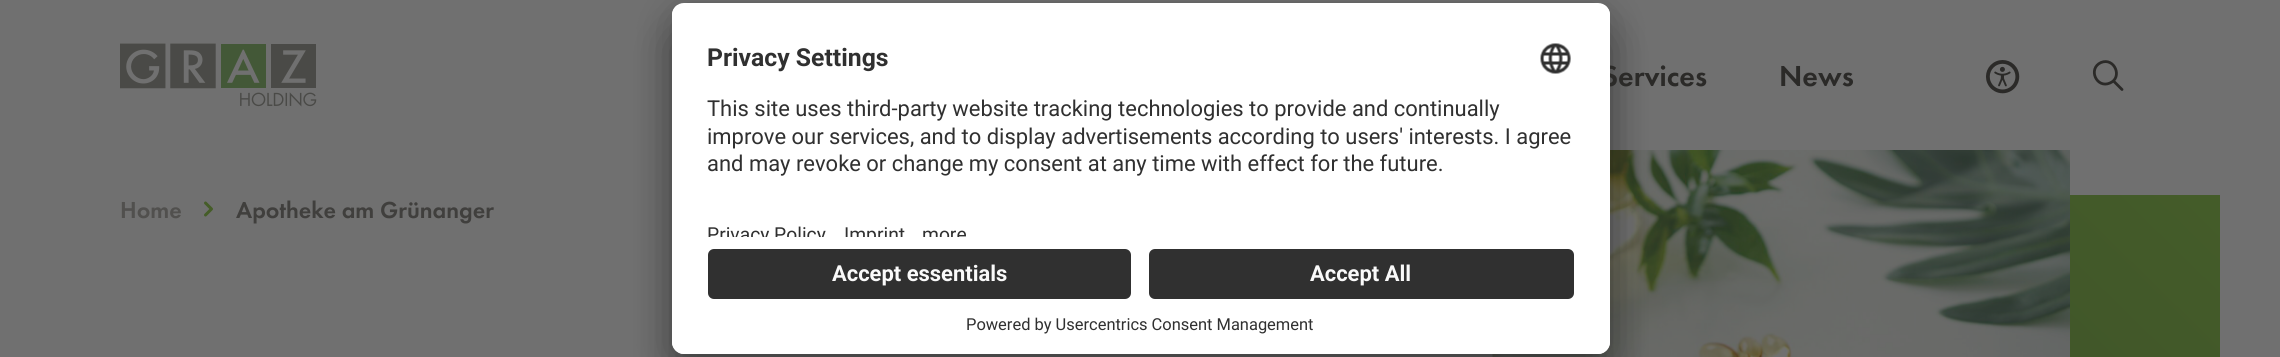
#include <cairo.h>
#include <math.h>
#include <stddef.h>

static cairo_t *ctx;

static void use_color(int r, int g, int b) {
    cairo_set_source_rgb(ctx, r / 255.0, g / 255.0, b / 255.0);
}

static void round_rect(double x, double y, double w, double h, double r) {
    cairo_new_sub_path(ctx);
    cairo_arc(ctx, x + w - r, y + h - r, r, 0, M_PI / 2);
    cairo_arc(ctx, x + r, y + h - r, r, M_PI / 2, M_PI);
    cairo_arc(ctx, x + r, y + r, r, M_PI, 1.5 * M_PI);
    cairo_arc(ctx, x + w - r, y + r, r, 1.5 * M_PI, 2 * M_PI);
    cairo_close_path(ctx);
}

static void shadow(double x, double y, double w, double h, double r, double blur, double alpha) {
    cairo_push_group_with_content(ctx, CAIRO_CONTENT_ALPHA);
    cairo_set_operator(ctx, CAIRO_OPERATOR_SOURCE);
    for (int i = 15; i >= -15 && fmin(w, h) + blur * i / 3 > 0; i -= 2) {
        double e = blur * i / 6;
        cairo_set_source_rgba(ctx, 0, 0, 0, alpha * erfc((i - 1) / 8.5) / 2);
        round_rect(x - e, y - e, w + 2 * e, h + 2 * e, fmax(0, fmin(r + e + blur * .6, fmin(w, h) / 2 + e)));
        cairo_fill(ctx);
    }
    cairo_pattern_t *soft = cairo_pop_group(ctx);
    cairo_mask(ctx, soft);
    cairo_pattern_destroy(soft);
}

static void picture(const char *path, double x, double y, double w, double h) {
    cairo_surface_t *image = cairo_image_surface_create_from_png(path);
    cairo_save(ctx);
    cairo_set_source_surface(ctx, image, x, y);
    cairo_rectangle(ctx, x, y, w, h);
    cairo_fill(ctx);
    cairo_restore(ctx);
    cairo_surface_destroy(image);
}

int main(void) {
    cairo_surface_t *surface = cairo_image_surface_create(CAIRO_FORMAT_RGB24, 2280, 357);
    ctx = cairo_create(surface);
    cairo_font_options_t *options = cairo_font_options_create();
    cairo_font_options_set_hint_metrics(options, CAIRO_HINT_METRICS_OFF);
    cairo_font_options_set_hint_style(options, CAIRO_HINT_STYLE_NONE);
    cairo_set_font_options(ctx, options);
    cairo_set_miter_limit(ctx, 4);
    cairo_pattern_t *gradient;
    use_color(112, 112, 112);
    cairo_paint(ctx);
    picture("img4.png", 1492, 150, 578, 207);
    use_color(0, 0, 0);
    shadow(672, 33, 938, 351, 12, 21, 0.3);
    shadow(672, 11, 938, 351, 12, 19.5, 0.22);
    cairo_select_font_face(ctx, "Futura PT Medium", CAIRO_FONT_SLANT_NORMAL, CAIRO_FONT_WEIGHT_NORMAL);
    cairo_set_font_size(ctx, 30);
    use_color(43, 42, 40);
    cairo_move_to(ctx, 1602, 86);
    cairo_show_text(ctx, "Services");
    use_color(255, 255, 255);
    round_rect(672, 3, 938, 351, 12);
    cairo_fill(ctx);
    cairo_save(ctx);
    round_rect(672, 3, 938, 351, 12);
    cairo_clip(ctx);
    cairo_new_path(ctx);
    cairo_move_to(ctx, 684, 3);
    cairo_line_to(ctx, 1598, 3);
    cairo_curve_to(ctx, 1604.5, 3, 1610, 8.5, 1610, 15);
    cairo_line_to(ctx, 1610, 237);
    cairo_line_to(ctx, 672, 237);
    cairo_line_to(ctx, 672, 15);
    cairo_curve_to(ctx, 672, 8.5, 677.5, 3, 684, 3);
    cairo_close_path(ctx);
    cairo_clip(ctx);
    cairo_rectangle(ctx, 672, 5, 938, 232);
    cairo_fill(ctx);
    cairo_restore(ctx);
    cairo_select_font_face(ctx, "Roboto", CAIRO_FONT_SLANT_NORMAL, CAIRO_FONT_WEIGHT_BOLD);
    cairo_set_font_size(ctx, 24.75);
    use_color(48, 48, 48);
    cairo_move_to(ctx, 707, 66);
    cairo_show_text(ctx, "Privacy Settings");
    picture("img1.png", 1540, 43, 31, 31);
    cairo_select_font_face(ctx, "Roboto", CAIRO_FONT_SLANT_NORMAL, CAIRO_FONT_WEIGHT_NORMAL);
    cairo_set_font_size(ctx, 21.95);
    cairo_move_to(ctx, 707, 116);
    cairo_show_text(ctx, "This site uses third-party website tracking technologies to provide and continually");
    cairo_move_to(ctx, 707, 144);
    cairo_show_text(ctx, "improve our services, and to display advertisements according to users' interests. I agree");
    cairo_move_to(ctx, 707, 171);
    cairo_show_text(ctx, "and may revoke or change my consent at any time with effect for the future.");
    cairo_save(ctx);
    cairo_new_path(ctx);
    cairo_move_to(ctx, 684, 3);
    cairo_line_to(ctx, 1598, 3);
    cairo_curve_to(ctx, 1604.5, 3, 1610, 8.5, 1610, 15);
    cairo_line_to(ctx, 1610, 237);
    cairo_line_to(ctx, 672, 237);
    cairo_line_to(ctx, 672, 15);
    cairo_curve_to(ctx, 672, 8.5, 677.5, 3, 684, 3);
    cairo_close_path(ctx);
    cairo_clip(ctx);
    cairo_set_font_size(ctx, 19.25);
    cairo_move_to(ctx, 707, 241);
    cairo_show_text(ctx, "Privacy Policy");
    cairo_move_to(ctx, 844, 241);
    cairo_show_text(ctx, "Imprint");
    cairo_move_to(ctx, 922, 241);
    cairo_show_text(ctx, "more");
    cairo_restore(ctx);
    use_color(255, 255, 255);
    cairo_new_path(ctx);
    cairo_move_to(ctx, 672, 237);
    cairo_line_to(ctx, 1610, 237);
    cairo_line_to(ctx, 1610, 342);
    cairo_curve_to(ctx, 1610, 348.5, 1604.5, 354, 1598, 354);
    cairo_line_to(ctx, 684, 354);
    cairo_curve_to(ctx, 677.5, 354, 672, 348.5, 672, 342);
    cairo_close_path(ctx);
    cairo_fill(ctx);
    use_color(48, 48, 48);
    round_rect(708, 249, 423, 50, 6);
    cairo_fill(ctx);
    cairo_select_font_face(ctx, "Roboto", CAIRO_FONT_SLANT_NORMAL, CAIRO_FONT_WEIGHT_BOLD);
    use_color(250, 250, 250);
    cairo_move_to(ctx, 832, 281);
    cairo_show_text(ctx, "Accept essentials");
    use_color(48, 48, 48);
    round_rect(1149, 249, 425, 50, 6);
    cairo_fill(ctx);
    use_color(250, 250, 250);
    cairo_move_to(ctx, 1310, 281);
    cairo_show_text(ctx, "Accept All");
    cairo_select_font_face(ctx, "Roboto", CAIRO_FONT_SLANT_NORMAL, CAIRO_FONT_WEIGHT_NORMAL);
    cairo_set_font_size(ctx, 16.45);
    use_color(48, 48, 48);
    cairo_move_to(ctx, 966, 330);
    cairo_show_text(ctx, "Powered by Usercentrics Consent Management");
    picture("img2.png", 120, 43, 197, 64);
    cairo_select_font_face(ctx, "Futura PT Medium", CAIRO_FONT_SLANT_NORMAL, CAIRO_FONT_WEIGHT_NORMAL);
    cairo_set_font_size(ctx, 30);
    use_color(43, 42, 40);
    cairo_move_to(ctx, 1779, 86);
    cairo_show_text(ctx, "News");
    picture("img3.png", 1986, 60, 34, 34);
    cairo_new_path(ctx);
    cairo_move_to(ctx, 2110, 83);
    cairo_curve_to(ctx, 2123, 77.5, 2114.5, 57, 2101, 62.5);
    cairo_curve_to(ctx, 2087.5, 68.5, 2096.5, 89, 2110, 83);
    cairo_close_path(ctx);
    cairo_move_to(ctx, 2113.5, 81);
    cairo_line_to(ctx, 2122, 89.5);
    cairo_set_line_width(ctx, 2.8);
    cairo_set_line_cap(ctx, CAIRO_LINE_CAP_ROUND);
    cairo_set_line_join(ctx, CAIRO_LINE_JOIN_ROUND);
    cairo_stroke(ctx);
    cairo_set_font_size(ctx, 24);
    use_color(81, 80, 78);
    cairo_move_to(ctx, 120, 218);
    cairo_show_text(ctx, "Home");
    cairo_new_path(ctx);
    cairo_move_to(ctx, 205.5, 215);
    cairo_line_to(ctx, 211.5, 209);
    cairo_line_to(ctx, 205.5, 203);
    use_color(69, 93, 40);
    cairo_set_line_width(ctx, 3);
    cairo_stroke(ctx);
    use_color(64, 63, 61);
    cairo_move_to(ctx, 236, 218);
    cairo_show_text(ctx, "Apotheke am Grünanger");
    gradient = cairo_pattern_create_linear(2220, 195, 1643, 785);
    cairo_pattern_add_color_stop_rgba(gradient, 0.01, 0.267, 0.361, 0.161, 1);
    cairo_pattern_add_color_stop_rgba(gradient, 0.83, 0.227, 0.294, 0.157, 1);
    cairo_set_source(ctx, gradient);
    cairo_pattern_destroy(gradient);
    cairo_rectangle(ctx, 2070, 195, 150, 162);
    cairo_fill(ctx);
    cairo_surface_write_to_png(surface, "result.png");
    cairo_font_options_destroy(options);
    cairo_destroy(ctx);
    cairo_surface_destroy(surface);
    return 0;
}
